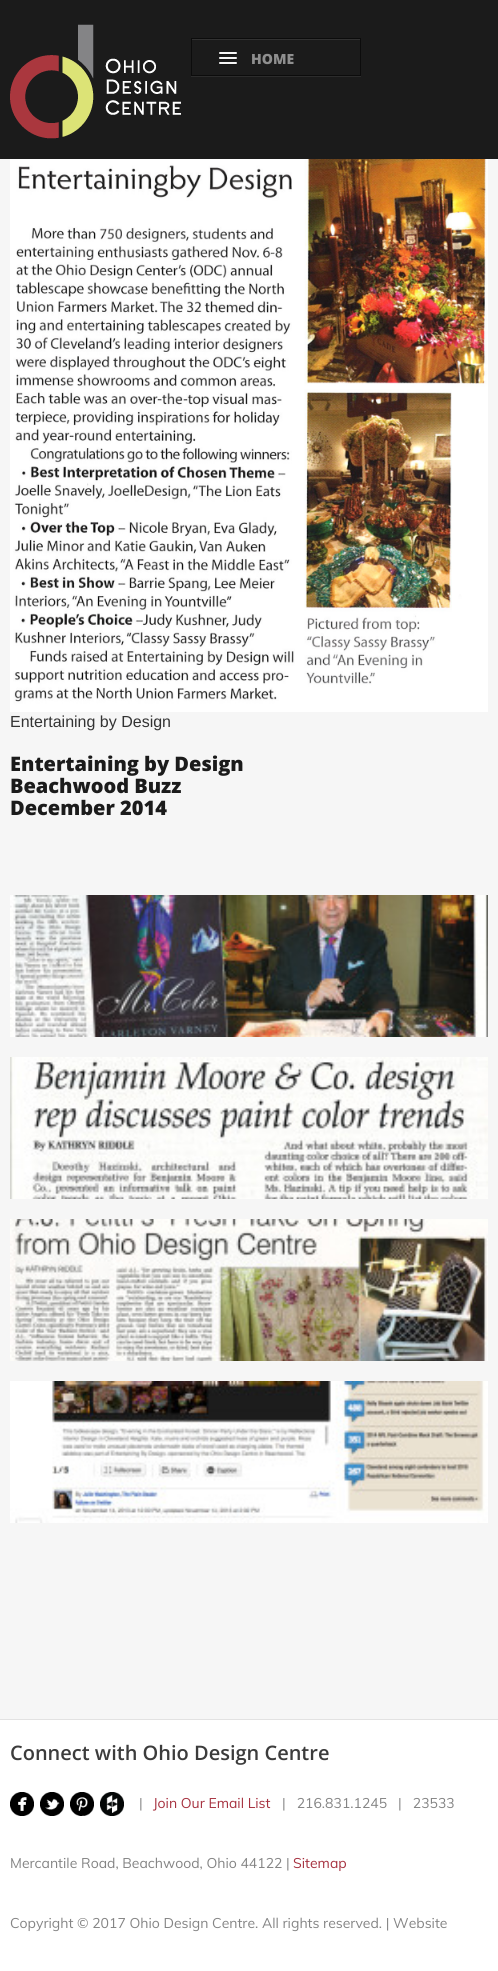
#include <cairo.h>
#include <math.h>
#include <stddef.h>

static cairo_t *ctx;

static void use_color(int r, int g, int b) {
    cairo_set_source_rgb(ctx, r / 255.0, g / 255.0, b / 255.0);
}

static void round_rect(double x, double y, double w, double h, double r) {
    cairo_new_sub_path(ctx);
    cairo_arc(ctx, x + w - r, y + h - r, r, 0, M_PI / 2);
    cairo_arc(ctx, x + r, y + h - r, r, M_PI / 2, M_PI);
    cairo_arc(ctx, x + r, y + r, r, M_PI, 1.5 * M_PI);
    cairo_arc(ctx, x + w - r, y + r, r, 1.5 * M_PI, 2 * M_PI);
    cairo_close_path(ctx);
}

static void picture(const char *path, double x, double y, double w, double h) {
    cairo_surface_t *image = cairo_image_surface_create_from_png(path);
    cairo_save(ctx);
    cairo_set_source_surface(ctx, image, x, y);
    cairo_rectangle(ctx, x, y, w, h);
    cairo_fill(ctx);
    cairo_restore(ctx);
    cairo_surface_destroy(image);
}

int main(void) {
    cairo_surface_t *surface = cairo_image_surface_create(CAIRO_FORMAT_RGB24, 498, 1971);
    ctx = cairo_create(surface);
    cairo_font_options_t *options = cairo_font_options_create();
    cairo_font_options_set_hint_metrics(options, CAIRO_HINT_METRICS_OFF);
    cairo_font_options_set_hint_style(options, CAIRO_HINT_STYLE_NONE);
    cairo_set_font_options(ctx, options);
    cairo_set_miter_limit(ctx, 4);
    use_color(255, 255, 255);
    cairo_paint(ctx);
    use_color(27, 27, 27);
    cairo_rectangle(ctx, 0, 0, 498, 159);
    cairo_fill(ctx);
    picture("img1.png", 10, 24, 171, 115);
    use_color(44, 44, 44);
    cairo_rectangle(ctx, 191, 76, 170, 1);
    cairo_fill(ctx);
    use_color(50, 50, 50);
    cairo_rectangle(ctx, 192, 39, 168, 1);
    cairo_fill(ctx);
    cairo_rectangle(ctx, 191.5, 38.5, 169, 37);
    use_color(12, 12, 12);
    cairo_set_line_width(ctx, 1);
    cairo_stroke(ctx);
    use_color(20, 20, 20);
    cairo_new_path(ctx);
    cairo_move_to(ctx, 219, 53.5);
    cairo_curve_to(ctx, 218, 55.5, 222.5, 55, 222.5, 55);
    cairo_line_to(ctx, 233.5, 55);
    cairo_curve_to(ctx, 233.5, 55, 238, 55.5, 237, 53.5);
    cairo_curve_to(ctx, 236, 54.5, 229.5, 54, 228, 54);
    cairo_curve_to(ctx, 226.5, 54, 220, 54.5, 219, 53.5);
    cairo_close_path(ctx);
    cairo_fill(ctx);
    use_color(245, 245, 245);
    round_rect(219, 52, 18, 2, 1);
    cairo_fill(ctx);
    use_color(20, 20, 20);
    cairo_new_path(ctx);
    cairo_move_to(ctx, 219, 58.5);
    cairo_curve_to(ctx, 218, 60.5, 222.5, 60, 222.5, 60);
    cairo_line_to(ctx, 233.5, 60);
    cairo_curve_to(ctx, 233.5, 60, 238, 60.5, 237, 58.5);
    cairo_curve_to(ctx, 236, 59.5, 229.5, 59, 228, 59);
    cairo_curve_to(ctx, 226.5, 59, 220, 59.5, 219, 58.5);
    cairo_close_path(ctx);
    cairo_fill(ctx);
    use_color(245, 245, 245);
    round_rect(219, 57, 18, 2, 1);
    cairo_fill(ctx);
    use_color(20, 20, 20);
    cairo_new_path(ctx);
    cairo_move_to(ctx, 219, 63.5);
    cairo_curve_to(ctx, 218, 65.5, 222.5, 65, 222.5, 65);
    cairo_line_to(ctx, 233.5, 65);
    cairo_curve_to(ctx, 233.5, 65, 238, 65.5, 237, 63.5);
    cairo_curve_to(ctx, 236, 64.5, 229.5, 64, 228, 64);
    cairo_curve_to(ctx, 226.5, 64, 220, 64.5, 219, 63.5);
    cairo_close_path(ctx);
    cairo_fill(ctx);
    use_color(245, 245, 245);
    round_rect(219, 62, 18, 2, 1);
    cairo_fill(ctx);
    cairo_select_font_face(ctx, "Open Sans ExtraBold", CAIRO_FONT_SLANT_NORMAL, CAIRO_FONT_WEIGHT_NORMAL);
    cairo_set_font_size(ctx, 14);
    use_color(143, 143, 143);
    cairo_move_to(ctx, 251, 64);
    cairo_show_text(ctx, "HOME");
    use_color(246, 246, 246);
    cairo_rectangle(ctx, 0, 159, 498, 1560);
    cairo_fill(ctx);
    picture("img2.png", 10, 159, 478, 553);
    cairo_select_font_face(ctx, "Liberation Sans", CAIRO_FONT_SLANT_NORMAL, CAIRO_FONT_WEIGHT_NORMAL);
    cairo_set_font_size(ctx, 16);
    use_color(51, 51, 51);
    cairo_move_to(ctx, 10, 727);
    cairo_show_text(ctx, "Entertaining by Design");
    cairo_select_font_face(ctx, "Open Sans ExtraBold", CAIRO_FONT_SLANT_NORMAL, CAIRO_FONT_WEIGHT_NORMAL);
    cairo_set_font_size(ctx, 20);
    use_color(27, 27, 27);
    cairo_move_to(ctx, 10, 771);
    cairo_show_text(ctx, "Entertaining by Design");
    cairo_move_to(ctx, 10, 793);
    cairo_show_text(ctx, "Beachwood Buzz");
    cairo_move_to(ctx, 10, 815);
    cairo_show_text(ctx, "December 2014");
    picture("img3.png", 10, 895, 478, 142);
    picture("img4.png", 10, 1057, 478, 142);
    picture("img5.png", 10, 1219, 478, 142);
    picture("img6.png", 10, 1381, 478, 142);
    use_color(226, 226, 226);
    cairo_rectangle(ctx, 0, 1719, 498, 1);
    cairo_fill(ctx);
    cairo_select_font_face(ctx, "Open Sans SemiBold", CAIRO_FONT_SLANT_NORMAL, CAIRO_FONT_WEIGHT_NORMAL);
    use_color(60, 60, 60);
    cairo_move_to(ctx, 10, 1760);
    cairo_show_text(ctx, "Connect with Ohio Design Centre");
    picture("img7.png", 10, 1792, 24, 24);
    picture("img8.png", 40, 1792, 24, 24);
    picture("img9.png", 70, 1792, 24, 24);
    picture("img10.png", 100, 1792, 24, 24);
    cairo_select_font_face(ctx, "Muli", CAIRO_FONT_SLANT_NORMAL, CAIRO_FONT_WEIGHT_NORMAL);
    cairo_set_font_size(ctx, 14);
    use_color(132, 132, 132);
    cairo_move_to(ctx, 139, 1808);
    cairo_show_text(ctx, "|");
    use_color(166, 49, 63);
    cairo_move_to(ctx, 153, 1808);
    cairo_show_text(ctx, "Join Our Email List");
    use_color(132, 132, 132);
    cairo_move_to(ctx, 282, 1808);
    cairo_show_text(ctx, "|   216.831.1245   |   23533");
    cairo_move_to(ctx, 10, 1868);
    cairo_show_text(ctx, "Mercantile Road, Beachwood, Ohio 44122 |");
    use_color(166, 49, 63);
    cairo_move_to(ctx, 293, 1868);
    cairo_show_text(ctx, "Sitemap");
    use_color(132, 132, 132);
    cairo_move_to(ctx, 10, 1928);
    cairo_show_text(ctx, "Copyright © 2017 Ohio Design Centre. All rights reserved. | Website");
    cairo_surface_write_to_png(surface, "result.png");
    cairo_font_options_destroy(options);
    cairo_destroy(ctx);
    cairo_surface_destroy(surface);
    return 0;
}
